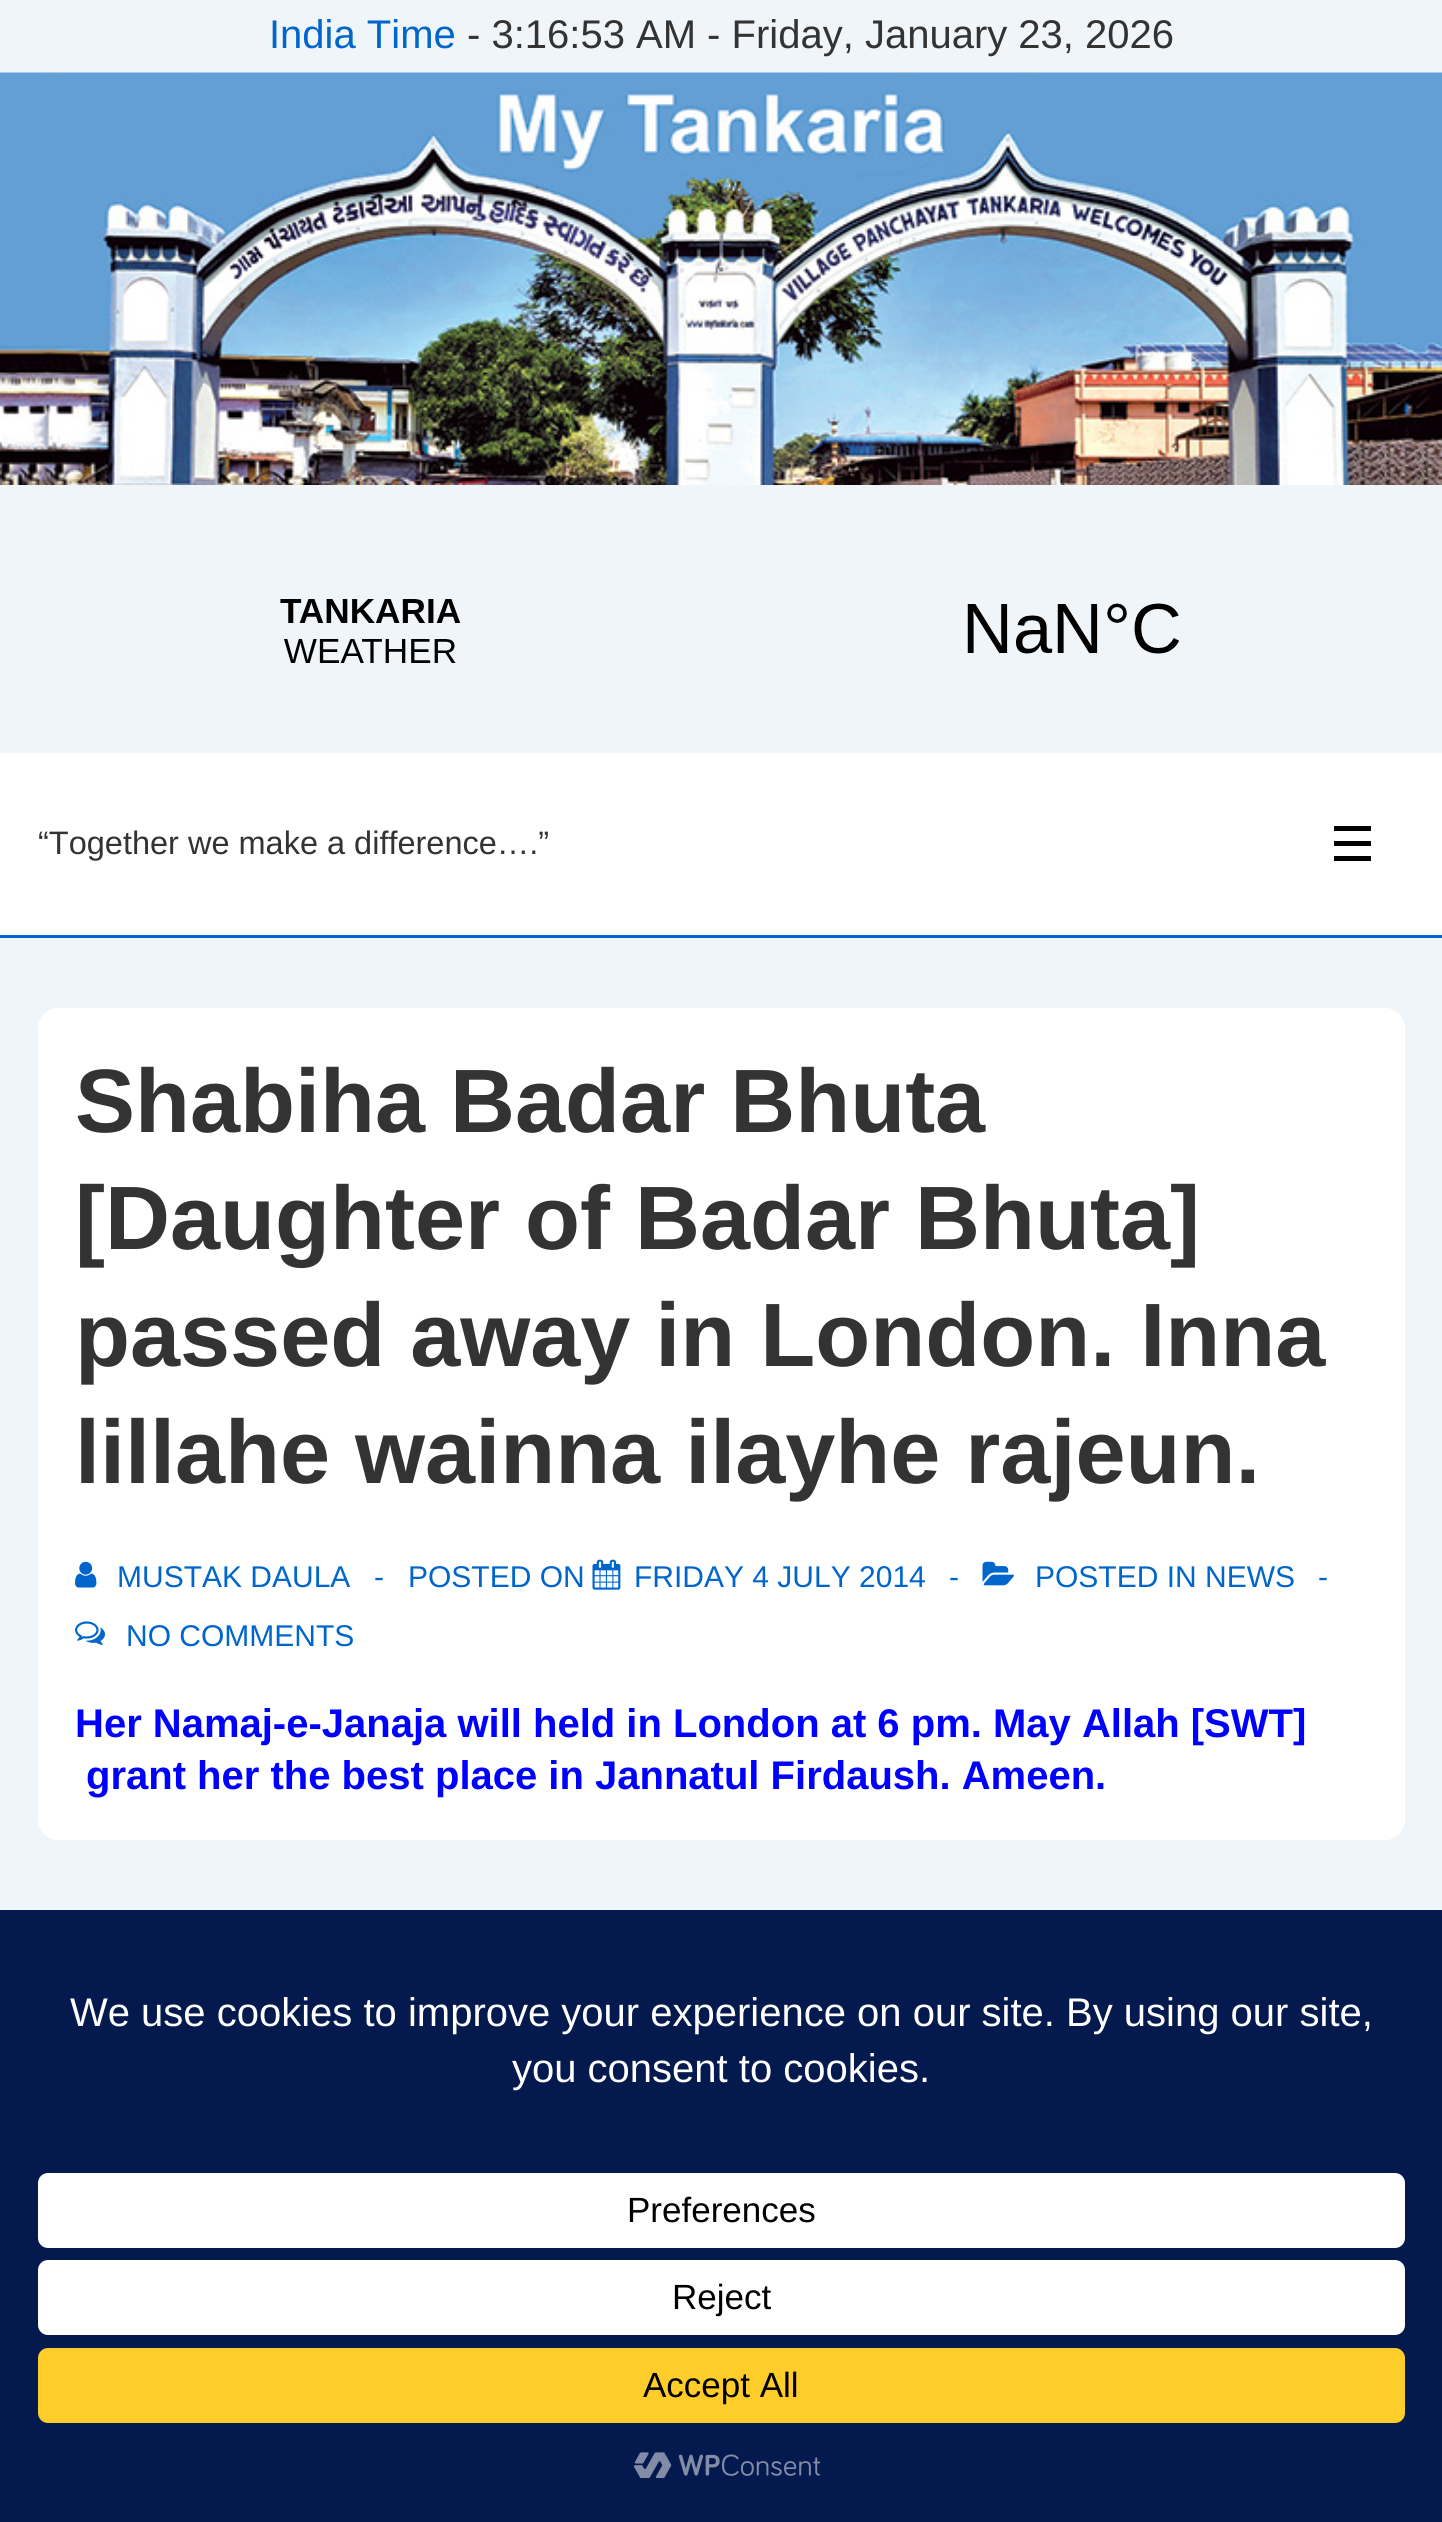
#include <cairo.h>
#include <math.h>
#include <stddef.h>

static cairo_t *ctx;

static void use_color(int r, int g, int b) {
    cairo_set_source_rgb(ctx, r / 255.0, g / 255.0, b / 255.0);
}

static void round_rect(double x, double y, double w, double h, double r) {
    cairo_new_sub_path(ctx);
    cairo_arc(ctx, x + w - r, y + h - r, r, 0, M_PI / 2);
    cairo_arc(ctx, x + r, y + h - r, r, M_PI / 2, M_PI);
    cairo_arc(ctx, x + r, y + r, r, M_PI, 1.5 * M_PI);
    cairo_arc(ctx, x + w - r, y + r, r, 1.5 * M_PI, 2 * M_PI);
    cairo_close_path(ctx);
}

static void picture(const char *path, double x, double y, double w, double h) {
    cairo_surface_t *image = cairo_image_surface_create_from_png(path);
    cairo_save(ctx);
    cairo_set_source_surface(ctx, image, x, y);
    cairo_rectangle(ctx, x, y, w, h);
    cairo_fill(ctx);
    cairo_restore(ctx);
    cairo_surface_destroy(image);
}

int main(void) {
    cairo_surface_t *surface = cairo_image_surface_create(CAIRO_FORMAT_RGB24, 1442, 2522);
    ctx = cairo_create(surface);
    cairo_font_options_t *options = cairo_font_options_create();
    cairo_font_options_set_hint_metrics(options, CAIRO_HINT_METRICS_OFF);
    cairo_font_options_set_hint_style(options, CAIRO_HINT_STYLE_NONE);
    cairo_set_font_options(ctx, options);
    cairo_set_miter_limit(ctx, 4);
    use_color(240, 245, 250);
    cairo_paint(ctx);
    cairo_select_font_face(ctx, "Liberation Sans", CAIRO_FONT_SLANT_NORMAL, CAIRO_FONT_WEIGHT_NORMAL);
    cairo_set_font_size(ctx, 40);
    use_color(0, 102, 204);
    cairo_move_to(ctx, 269, 48);
    cairo_show_text(ctx, "India Time");
    use_color(51, 51, 51);
    cairo_move_to(ctx, 467, 48);
    cairo_show_text(ctx, "- 3:16:53 AM - Friday, January 23, 2026");
    picture("img1.png", 0, 72, 1442, 413);
    picture("img2.png", 280, 599, 899, 64);
    use_color(255, 255, 255);
    cairo_rectangle(ctx, 0, 753, 1442, 182);
    cairo_fill(ctx);
    use_color(0, 102, 204);
    cairo_rectangle(ctx, 0, 935, 1442, 3);
    cairo_fill(ctx);
    cairo_set_font_size(ctx, 32.5);
    use_color(51, 51, 51);
    cairo_move_to(ctx, 38, 854);
    cairo_show_text(ctx, "“Together we make a difference….”");
    use_color(0, 0, 0);
    cairo_rectangle(ctx, 1334, 826, 37, 5);
    cairo_fill(ctx);
    cairo_rectangle(ctx, 1334, 841, 37, 5);
    cairo_fill(ctx);
    cairo_rectangle(ctx, 1334, 856, 37, 5);
    cairo_fill(ctx);
    use_color(255, 255, 255);
    round_rect(38, 1008, 1367, 832, 20);
    cairo_fill(ctx);
    cairo_select_font_face(ctx, "Liberation Sans", CAIRO_FONT_SLANT_NORMAL, CAIRO_FONT_WEIGHT_BOLD);
    cairo_set_font_size(ctx, 90);
    use_color(51, 51, 51);
    cairo_move_to(ctx, 75, 1132);
    cairo_show_text(ctx, "Shabiha Badar Bhuta");
    cairo_move_to(ctx, 75, 1249);
    cairo_show_text(ctx, "[Daughter of Badar Bhuta]");
    cairo_move_to(ctx, 75, 1366);
    cairo_show_text(ctx, "passed away in London. Inna");
    cairo_move_to(ctx, 75, 1483);
    cairo_show_text(ctx, "lillahe wainna ilayhe rajeun.");
    picture("img3.png", 75, 1561, 22, 27);
    cairo_select_font_face(ctx, "Liberation Sans", CAIRO_FONT_SLANT_NORMAL, CAIRO_FONT_WEIGHT_NORMAL);
    cairo_set_font_size(ctx, 30);
    use_color(0, 102, 204);
    cairo_move_to(ctx, 117, 1587);
    cairo_show_text(ctx, "MUSTAK DAULA");
    cairo_move_to(ctx, 374, 1587);
    cairo_show_text(ctx, "-");
    cairo_move_to(ctx, 408, 1587);
    cairo_show_text(ctx, "POSTED ON");
    picture("img4.png", 592, 1559, 29, 31);
    cairo_move_to(ctx, 634, 1587);
    cairo_show_text(ctx, "FRIDAY 4 JULY 2014");
    cairo_move_to(ctx, 949, 1587);
    cairo_show_text(ctx, "-");
    picture("img5.png", 982, 1561, 32, 25);
    cairo_move_to(ctx, 1035, 1587);
    cairo_show_text(ctx, "POSTED IN NEWS");
    cairo_move_to(ctx, 1318, 1587);
    cairo_show_text(ctx, "-");
    picture("img6.png", 75, 1621, 30, 24);
    cairo_move_to(ctx, 126, 1646);
    cairo_show_text(ctx, "NO COMMENTS");
    cairo_select_font_face(ctx, "Liberation Sans", CAIRO_FONT_SLANT_NORMAL, CAIRO_FONT_WEIGHT_BOLD);
    cairo_set_font_size(ctx, 40);
    use_color(0, 0, 255);
    cairo_move_to(ctx, 75, 1737);
    cairo_show_text(ctx, "Her Namaj-e-Janaja will held in London at 6 pm. May Allah [SWT]");
    cairo_move_to(ctx, 86, 1789);
    cairo_show_text(ctx, "grant her the best place in Jannatul Firdaush. Ameen.");
    use_color(4, 25, 78);
    cairo_rectangle(ctx, 0, 1910, 1442, 612);
    cairo_fill(ctx);
    cairo_select_font_face(ctx, "Liberation Sans", CAIRO_FONT_SLANT_NORMAL, CAIRO_FONT_WEIGHT_NORMAL);
    use_color(255, 255, 255);
    cairo_move_to(ctx, 70, 2026);
    cairo_show_text(ctx, "We use cookies to improve your experience on our site. By using our site,");
    cairo_move_to(ctx, 512, 2082);
    cairo_show_text(ctx, "you consent to cookies.");
    round_rect(38, 2173, 1367, 75, 10);
    cairo_fill(ctx);
    cairo_set_font_size(ctx, 35);
    use_color(0, 0, 0);
    cairo_move_to(ctx, 627, 2222);
    cairo_show_text(ctx, "Preferences");
    use_color(255, 255, 255);
    round_rect(38, 2260, 1367, 75, 10);
    cairo_fill(ctx);
    use_color(0, 0, 0);
    cairo_move_to(ctx, 672, 2309);
    cairo_show_text(ctx, "Reject");
    use_color(255, 205, 42);
    round_rect(38, 2348, 1367, 75, 10);
    cairo_fill(ctx);
    use_color(0, 0, 0);
    cairo_move_to(ctx, 643, 2397);
    cairo_show_text(ctx, "Accept All");
    picture("img7.png", 634, 2452, 186, 26);
    cairo_surface_write_to_png(surface, "result.png");
    cairo_font_options_destroy(options);
    cairo_destroy(ctx);
    cairo_surface_destroy(surface);
    return 0;
}
